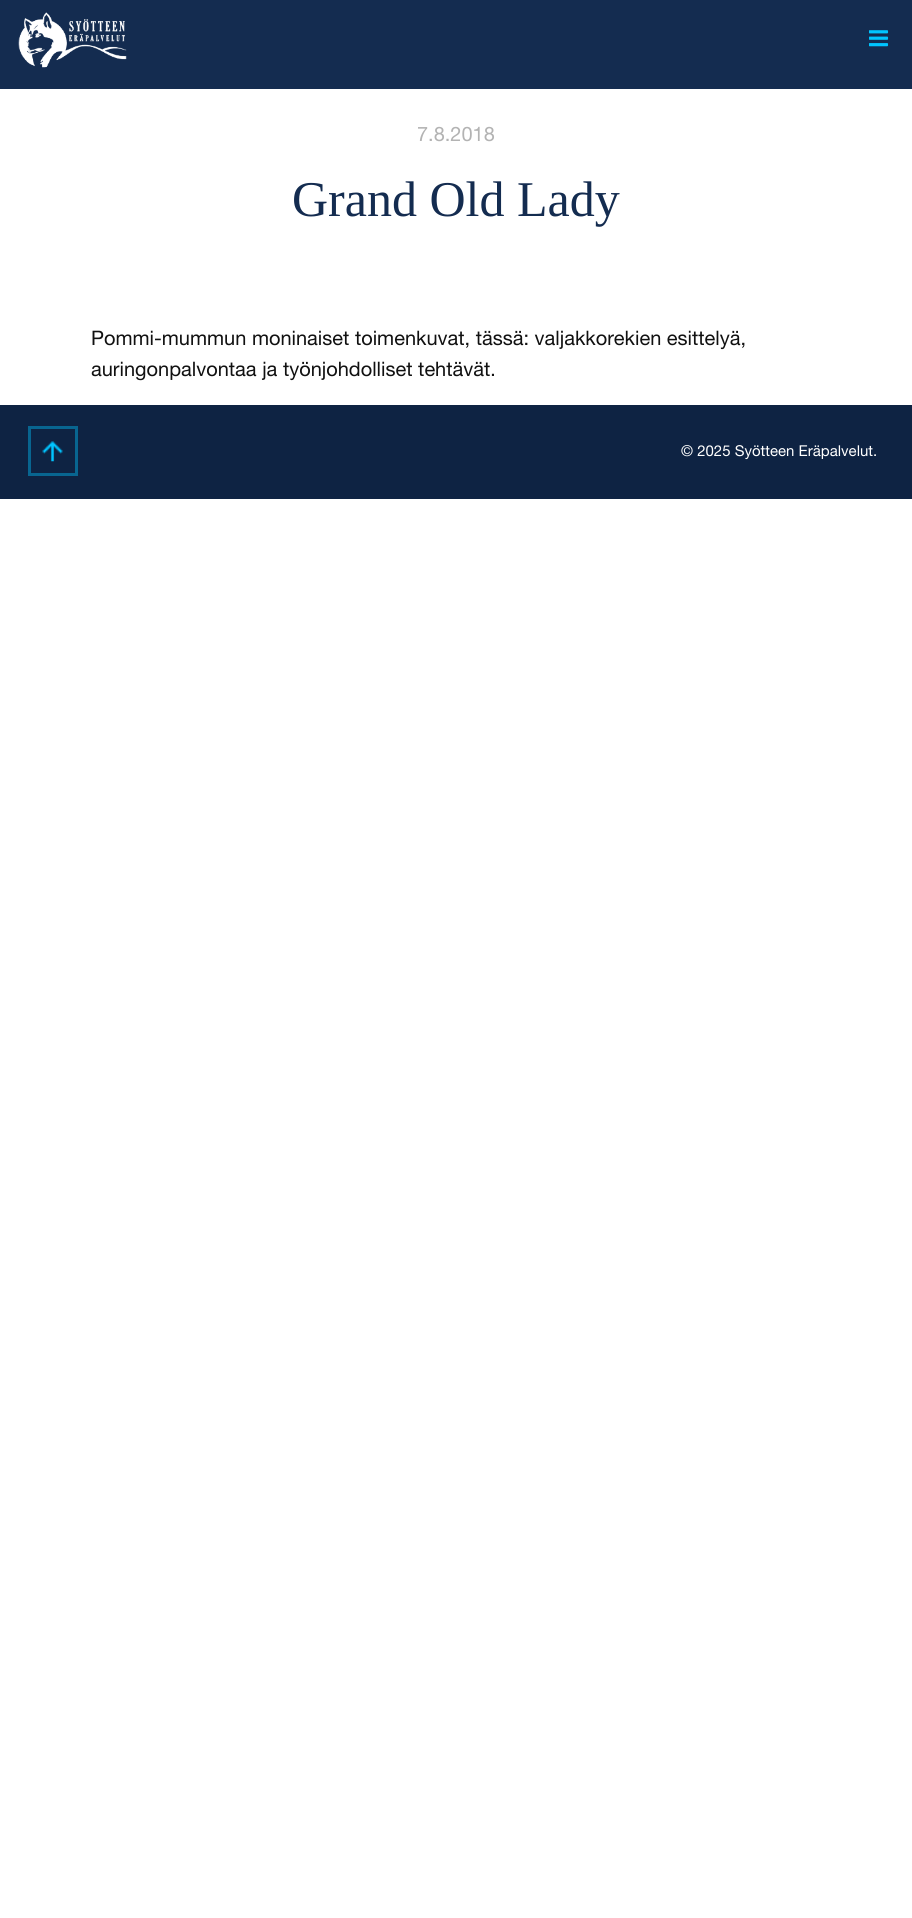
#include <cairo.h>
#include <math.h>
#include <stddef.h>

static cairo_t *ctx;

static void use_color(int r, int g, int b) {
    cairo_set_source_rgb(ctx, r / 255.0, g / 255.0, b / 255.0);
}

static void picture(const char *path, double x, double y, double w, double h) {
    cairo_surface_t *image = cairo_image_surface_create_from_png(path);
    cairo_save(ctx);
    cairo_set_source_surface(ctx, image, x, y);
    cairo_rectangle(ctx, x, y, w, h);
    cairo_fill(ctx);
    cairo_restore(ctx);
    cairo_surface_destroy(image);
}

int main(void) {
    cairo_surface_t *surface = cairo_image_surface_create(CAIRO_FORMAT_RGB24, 912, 1918);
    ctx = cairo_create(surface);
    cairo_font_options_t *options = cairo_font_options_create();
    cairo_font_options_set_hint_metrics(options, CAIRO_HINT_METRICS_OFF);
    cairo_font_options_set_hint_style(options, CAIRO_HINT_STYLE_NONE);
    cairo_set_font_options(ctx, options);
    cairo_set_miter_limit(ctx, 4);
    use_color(255, 255, 255);
    cairo_paint(ctx);
    use_color(20, 44, 80);
    cairo_rectangle(ctx, 0, 0, 912, 89);
    cairo_fill(ctx);
    picture("img1.png", 18, 12, 109, 56);
    picture("img2.png", 869, 30, 20, 17);
    cairo_select_font_face(ctx, "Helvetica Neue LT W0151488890", CAIRO_FONT_SLANT_NORMAL, CAIRO_FONT_WEIGHT_NORMAL);
    cairo_set_font_size(ctx, 20);
    use_color(179, 179, 179);
    cairo_move_to(ctx, 417, 141);
    cairo_show_text(ctx, "7.8.2018");
    cairo_select_font_face(ctx, "Liberation Serif", CAIRO_FONT_SLANT_NORMAL, CAIRO_FONT_WEIGHT_NORMAL);
    cairo_set_font_size(ctx, 50);
    use_color(20, 44, 80);
    cairo_move_to(ctx, 292, 216);
    cairo_show_text(ctx, "Grand Old Lady");
    cairo_select_font_face(ctx, "Helvetica Neue LT W0151488890", CAIRO_FONT_SLANT_NORMAL, CAIRO_FONT_WEIGHT_NORMAL);
    cairo_set_font_size(ctx, 20);
    use_color(17, 17, 17);
    cairo_move_to(ctx, 91, 345);
    cairo_show_text(ctx, "Pommi-mummun moninaiset toimenkuvat, tässä: valjakkorekien esittelyä,");
    cairo_move_to(ctx, 91, 376);
    cairo_show_text(ctx, "auringonpalvontaa ja työnjohdolliset tehtävät.");
    use_color(14, 35, 67);
    cairo_rectangle(ctx, 0, 405, 912, 94);
    cairo_fill(ctx);
    picture("img3.png", 42, 441, 21, 21);
    cairo_rectangle(ctx, 29.5, 427.5, 47, 47);
    use_color(8, 101, 144);
    cairo_set_line_width(ctx, 3);
    cairo_stroke(ctx);
    cairo_set_font_size(ctx, 15);
    use_color(255, 255, 255);
    cairo_move_to(ctx, 681, 456);
    cairo_show_text(ctx, "© 2025 Syötteen Eräpalvelut.");
    cairo_surface_write_to_png(surface, "result.png");
    cairo_font_options_destroy(options);
    cairo_destroy(ctx);
    cairo_surface_destroy(surface);
    return 0;
}
